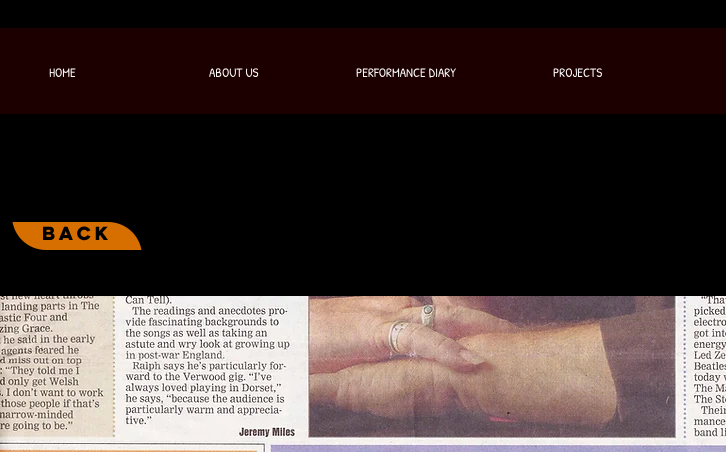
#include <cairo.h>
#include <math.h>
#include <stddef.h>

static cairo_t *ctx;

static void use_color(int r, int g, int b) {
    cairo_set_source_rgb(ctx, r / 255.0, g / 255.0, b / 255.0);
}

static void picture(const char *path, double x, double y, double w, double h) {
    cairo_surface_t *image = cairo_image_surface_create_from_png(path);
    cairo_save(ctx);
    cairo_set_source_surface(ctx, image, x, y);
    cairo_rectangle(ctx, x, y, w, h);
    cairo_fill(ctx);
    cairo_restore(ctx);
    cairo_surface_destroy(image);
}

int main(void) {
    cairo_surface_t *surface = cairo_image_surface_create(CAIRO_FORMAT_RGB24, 726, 452);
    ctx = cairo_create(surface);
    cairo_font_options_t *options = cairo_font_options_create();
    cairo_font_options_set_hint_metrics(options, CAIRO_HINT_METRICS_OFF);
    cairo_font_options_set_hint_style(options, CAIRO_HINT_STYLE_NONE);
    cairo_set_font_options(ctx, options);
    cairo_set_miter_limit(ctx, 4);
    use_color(0, 0, 0);
    cairo_paint(ctx);
    use_color(28, 0, 0);
    cairo_rectangle(ctx, 0, 28, 726, 86);
    cairo_fill(ctx);
    cairo_select_font_face(ctx, "Patrick Hand", CAIRO_FONT_SLANT_NORMAL, CAIRO_FONT_WEIGHT_NORMAL);
    cairo_set_font_size(ctx, 13);
    use_color(255, 255, 255);
    cairo_move_to(ctx, 49, 77);
    cairo_show_text(ctx, "HOME");
    cairo_move_to(ctx, 209, 77);
    cairo_show_text(ctx, "ABOUT US");
    cairo_move_to(ctx, 356, 77);
    cairo_show_text(ctx, "PERFORMANCE DIARY");
    cairo_move_to(ctx, 553, 77);
    cairo_show_text(ctx, "PROJECTS");
    use_color(214, 110, 0);
    cairo_new_path(ctx);
    cairo_move_to(ctx, 9, 219);
    cairo_line_to(ctx, 108, 219);
    cairo_curve_to(ctx, 128.5, 219, 145, 235.5, 145, 256);
    cairo_line_to(ctx, 145, 253);
    cairo_line_to(ctx, 46, 253);
    cairo_curve_to(ctx, 25.5, 253, 9, 236.5, 9, 216);
    cairo_close_path(ctx);
    cairo_fill_preserve(ctx);
    use_color(0, 0, 0);
    cairo_set_line_width(ctx, 6);
    cairo_stroke(ctx);
    cairo_select_font_face(ctx, "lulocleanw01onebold", CAIRO_FONT_SLANT_NORMAL, CAIRO_FONT_WEIGHT_BOLD);
    cairo_set_font_size(ctx, 17);
    cairo_move_to(ctx, 42, 240);
    cairo_show_text(ctx, "Back");
    picture("img1.png", 0, 296, 726, 156);
    cairo_surface_write_to_png(surface, "result.png");
    cairo_font_options_destroy(options);
    cairo_destroy(ctx);
    cairo_surface_destroy(surface);
    return 0;
}
